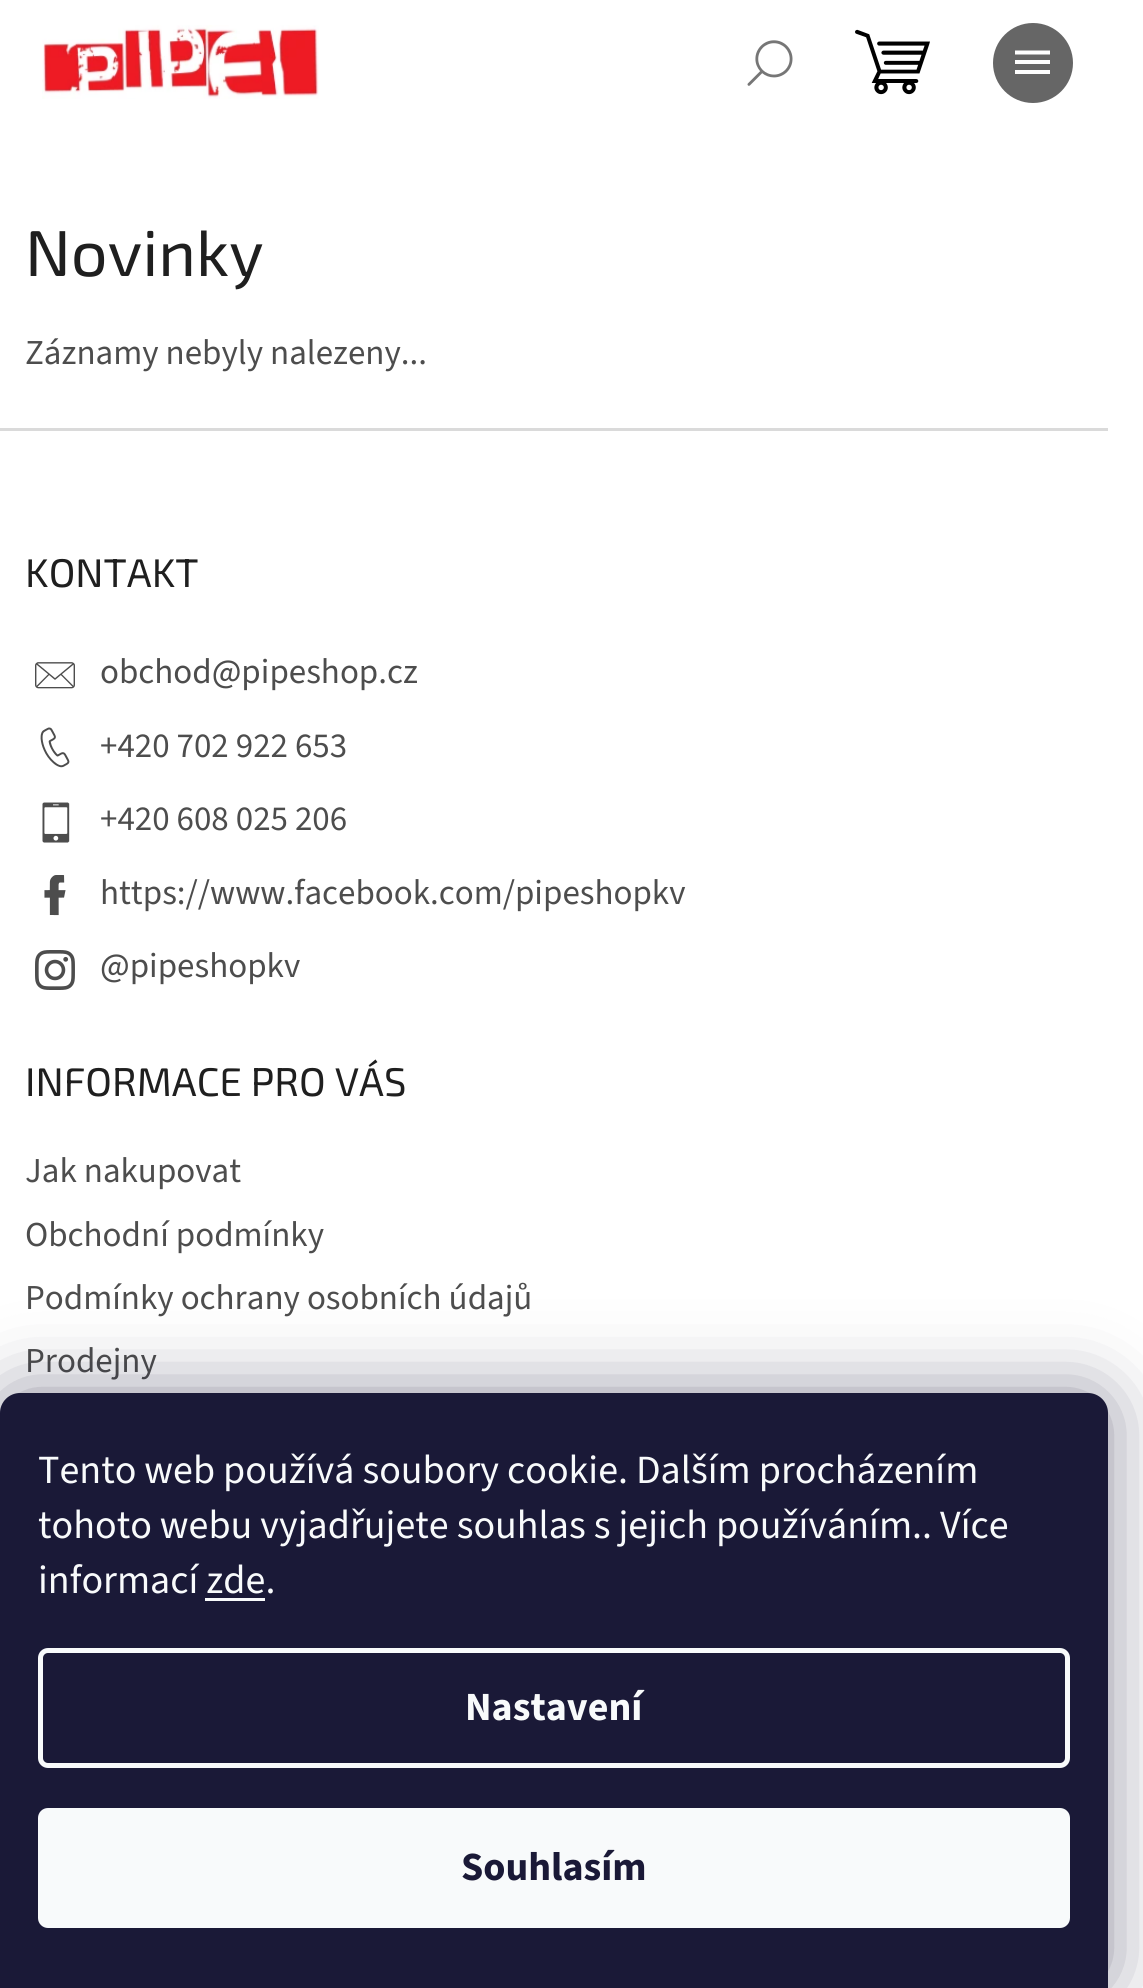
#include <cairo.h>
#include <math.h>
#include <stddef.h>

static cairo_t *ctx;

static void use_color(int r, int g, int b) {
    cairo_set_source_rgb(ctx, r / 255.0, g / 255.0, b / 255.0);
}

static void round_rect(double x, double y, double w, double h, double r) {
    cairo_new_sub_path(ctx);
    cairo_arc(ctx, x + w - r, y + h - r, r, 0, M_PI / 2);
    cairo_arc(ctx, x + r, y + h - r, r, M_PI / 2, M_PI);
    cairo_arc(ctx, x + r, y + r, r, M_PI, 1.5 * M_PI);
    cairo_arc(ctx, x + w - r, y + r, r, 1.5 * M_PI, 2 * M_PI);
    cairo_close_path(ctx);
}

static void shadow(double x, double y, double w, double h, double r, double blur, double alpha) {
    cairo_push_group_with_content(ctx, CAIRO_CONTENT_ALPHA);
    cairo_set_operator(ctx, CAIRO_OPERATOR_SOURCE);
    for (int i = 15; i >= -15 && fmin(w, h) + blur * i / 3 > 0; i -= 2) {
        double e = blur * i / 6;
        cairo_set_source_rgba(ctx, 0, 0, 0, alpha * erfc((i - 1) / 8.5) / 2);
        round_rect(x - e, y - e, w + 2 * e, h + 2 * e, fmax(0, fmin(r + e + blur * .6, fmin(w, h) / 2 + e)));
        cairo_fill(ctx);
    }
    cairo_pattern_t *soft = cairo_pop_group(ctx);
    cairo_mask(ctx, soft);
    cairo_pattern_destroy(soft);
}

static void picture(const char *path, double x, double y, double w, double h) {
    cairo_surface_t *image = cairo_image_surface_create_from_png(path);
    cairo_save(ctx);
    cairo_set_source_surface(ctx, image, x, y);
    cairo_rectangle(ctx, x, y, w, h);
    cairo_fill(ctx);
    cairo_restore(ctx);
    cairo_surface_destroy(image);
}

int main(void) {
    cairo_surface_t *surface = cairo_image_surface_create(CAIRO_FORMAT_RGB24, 1143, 1988);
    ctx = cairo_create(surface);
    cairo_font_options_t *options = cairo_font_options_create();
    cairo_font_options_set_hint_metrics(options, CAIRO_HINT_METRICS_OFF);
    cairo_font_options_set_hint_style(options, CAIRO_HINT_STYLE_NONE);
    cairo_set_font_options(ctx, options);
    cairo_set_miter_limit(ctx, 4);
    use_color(255, 255, 255);
    cairo_paint(ctx);
    picture("img1.png", 747, 40, 46, 46);
    use_color(102, 102, 102);
    cairo_arc(ctx, 1033, 63, 40, 0, 2 * M_PI);
    cairo_fill(ctx);
    use_color(255, 255, 255);
    cairo_new_path(ctx);
    cairo_move_to(ctx, 1015, 74);
    cairo_line_to(ctx, 1050, 74);
    cairo_line_to(ctx, 1050, 70);
    cairo_line_to(ctx, 1015, 70);
    cairo_close_path(ctx);
    cairo_move_to(ctx, 1015, 64);
    cairo_line_to(ctx, 1050, 64);
    cairo_line_to(ctx, 1050, 60);
    cairo_line_to(ctx, 1015, 60);
    cairo_close_path(ctx);
    cairo_move_to(ctx, 1015, 50.5);
    cairo_line_to(ctx, 1015, 54.5);
    cairo_line_to(ctx, 1050, 54.5);
    cairo_line_to(ctx, 1050, 50.5);
    cairo_close_path(ctx);
    cairo_fill(ctx);
    picture("img2.png", 42, 25, 277, 74);
    picture("img3.png", 855, 29, 75, 66);
    cairo_select_font_face(ctx, "Exo 2", CAIRO_FONT_SLANT_NORMAL, CAIRO_FONT_WEIGHT_NORMAL);
    cairo_set_font_size(ctx, 65);
    use_color(31, 31, 31);
    cairo_move_to(ctx, 25, 276);
    cairo_show_text(ctx, "Novinky");
    cairo_select_font_face(ctx, "Source Sans 3", CAIRO_FONT_SLANT_NORMAL, CAIRO_FONT_WEIGHT_NORMAL);
    cairo_set_font_size(ctx, 35);
    use_color(77, 77, 77);
    cairo_move_to(ctx, 25, 364);
    cairo_show_text(ctx, "Záznamy nebyly nalezeny...");
    use_color(218, 218, 218);
    cairo_rectangle(ctx, 0, 428, 1108, 3);
    cairo_fill(ctx);
    cairo_select_font_face(ctx, "Exo 2", CAIRO_FONT_SLANT_NORMAL, CAIRO_FONT_WEIGHT_NORMAL);
    cairo_set_font_size(ctx, 40);
    use_color(31, 31, 31);
    cairo_move_to(ctx, 25, 587);
    cairo_show_text(ctx, "KONTAKT");
    picture("img4.png", 35, 662, 40, 27);
    cairo_select_font_face(ctx, "Source Sans 3", CAIRO_FONT_SLANT_NORMAL, CAIRO_FONT_WEIGHT_NORMAL);
    cairo_set_font_size(ctx, 35);
    use_color(77, 77, 77);
    cairo_move_to(ctx, 100, 683);
    cairo_show_text(ctx, "obchod@pipeshop.cz");
    picture("img5.png", 40, 727, 30, 41);
    cairo_move_to(ctx, 100, 757);
    cairo_show_text(ctx, "+420 702 922 653");
    picture("img6.png", 42, 802, 28, 41);
    cairo_move_to(ctx, 100, 830);
    cairo_show_text(ctx, "+420 608 025 206");
    picture("img7.png", 44, 875, 22, 41);
    cairo_move_to(ctx, 100, 904);
    cairo_show_text(ctx, "https://www.facebook.com/pipeshopkv");
    picture("img8.png", 35, 950, 40, 40);
    cairo_move_to(ctx, 100, 977);
    cairo_show_text(ctx, "@pipeshopkv");
    cairo_select_font_face(ctx, "Exo 2", CAIRO_FONT_SLANT_NORMAL, CAIRO_FONT_WEIGHT_NORMAL);
    cairo_set_font_size(ctx, 40);
    use_color(31, 31, 31);
    cairo_move_to(ctx, 25, 1096);
    cairo_show_text(ctx, "INFORMACE PRO VÁS");
    cairo_select_font_face(ctx, "Source Sans 3", CAIRO_FONT_SLANT_NORMAL, CAIRO_FONT_WEIGHT_NORMAL);
    cairo_set_font_size(ctx, 35);
    use_color(77, 77, 77);
    cairo_move_to(ctx, 25, 1182);
    cairo_show_text(ctx, "Jak nakupovat");
    cairo_move_to(ctx, 25, 1246);
    cairo_show_text(ctx, "Obchodní podmínky");
    cairo_move_to(ctx, 25, 1309);
    cairo_show_text(ctx, "Podmínky ochrany osobních údajů");
    cairo_move_to(ctx, 25, 1372);
    cairo_show_text(ctx, "Prodejny");
    use_color(27, 25, 57);
    shadow(0, 1393, 1108, 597, 20, 37.5, 0.5);
    use_color(26, 25, 55);
    cairo_new_path(ctx);
    cairo_move_to(ctx, 20, 1393);
    cairo_line_to(ctx, 1088, 1393);
    cairo_curve_to(ctx, 1099, 1393, 1108, 1402, 1108, 1413);
    cairo_line_to(ctx, 1108, 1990);
    cairo_line_to(ctx, 0, 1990);
    cairo_line_to(ctx, 0, 1413);
    cairo_curve_to(ctx, 0, 1402, 9, 1393, 20, 1393);
    cairo_close_path(ctx);
    cairo_fill(ctx);
    cairo_set_font_size(ctx, 40);
    use_color(248, 250, 251);
    cairo_move_to(ctx, 38, 1483);
    cairo_show_text(ctx, "Tento web používá soubory cookie. Dalším procházením");
    cairo_move_to(ctx, 38, 1538);
    cairo_show_text(ctx, "tohoto webu vyjadřujete souhlas s jejich používáním.. Více");
    cairo_move_to(ctx, 38, 1593);
    cairo_show_text(ctx, "informací zde.");
    cairo_rectangle(ctx, 205, 1598, 60, 3);
    cairo_fill(ctx);
    round_rect(40.5, 1650.5, 1027, 115, 7.5);
    cairo_set_line_width(ctx, 5);
    cairo_stroke(ctx);
    cairo_select_font_face(ctx, "Source Sans 3", CAIRO_FONT_SLANT_NORMAL, CAIRO_FONT_WEIGHT_BOLD);
    cairo_move_to(ctx, 465, 1720);
    cairo_show_text(ctx, "Nastavení");
    round_rect(38, 1808, 1032, 120, 10);
    cairo_fill(ctx);
    use_color(26, 25, 55);
    cairo_move_to(ctx, 461, 1880);
    cairo_show_text(ctx, "Souhlasím");
    cairo_surface_write_to_png(surface, "result.png");
    cairo_font_options_destroy(options);
    cairo_destroy(ctx);
    cairo_surface_destroy(surface);
    return 0;
}
